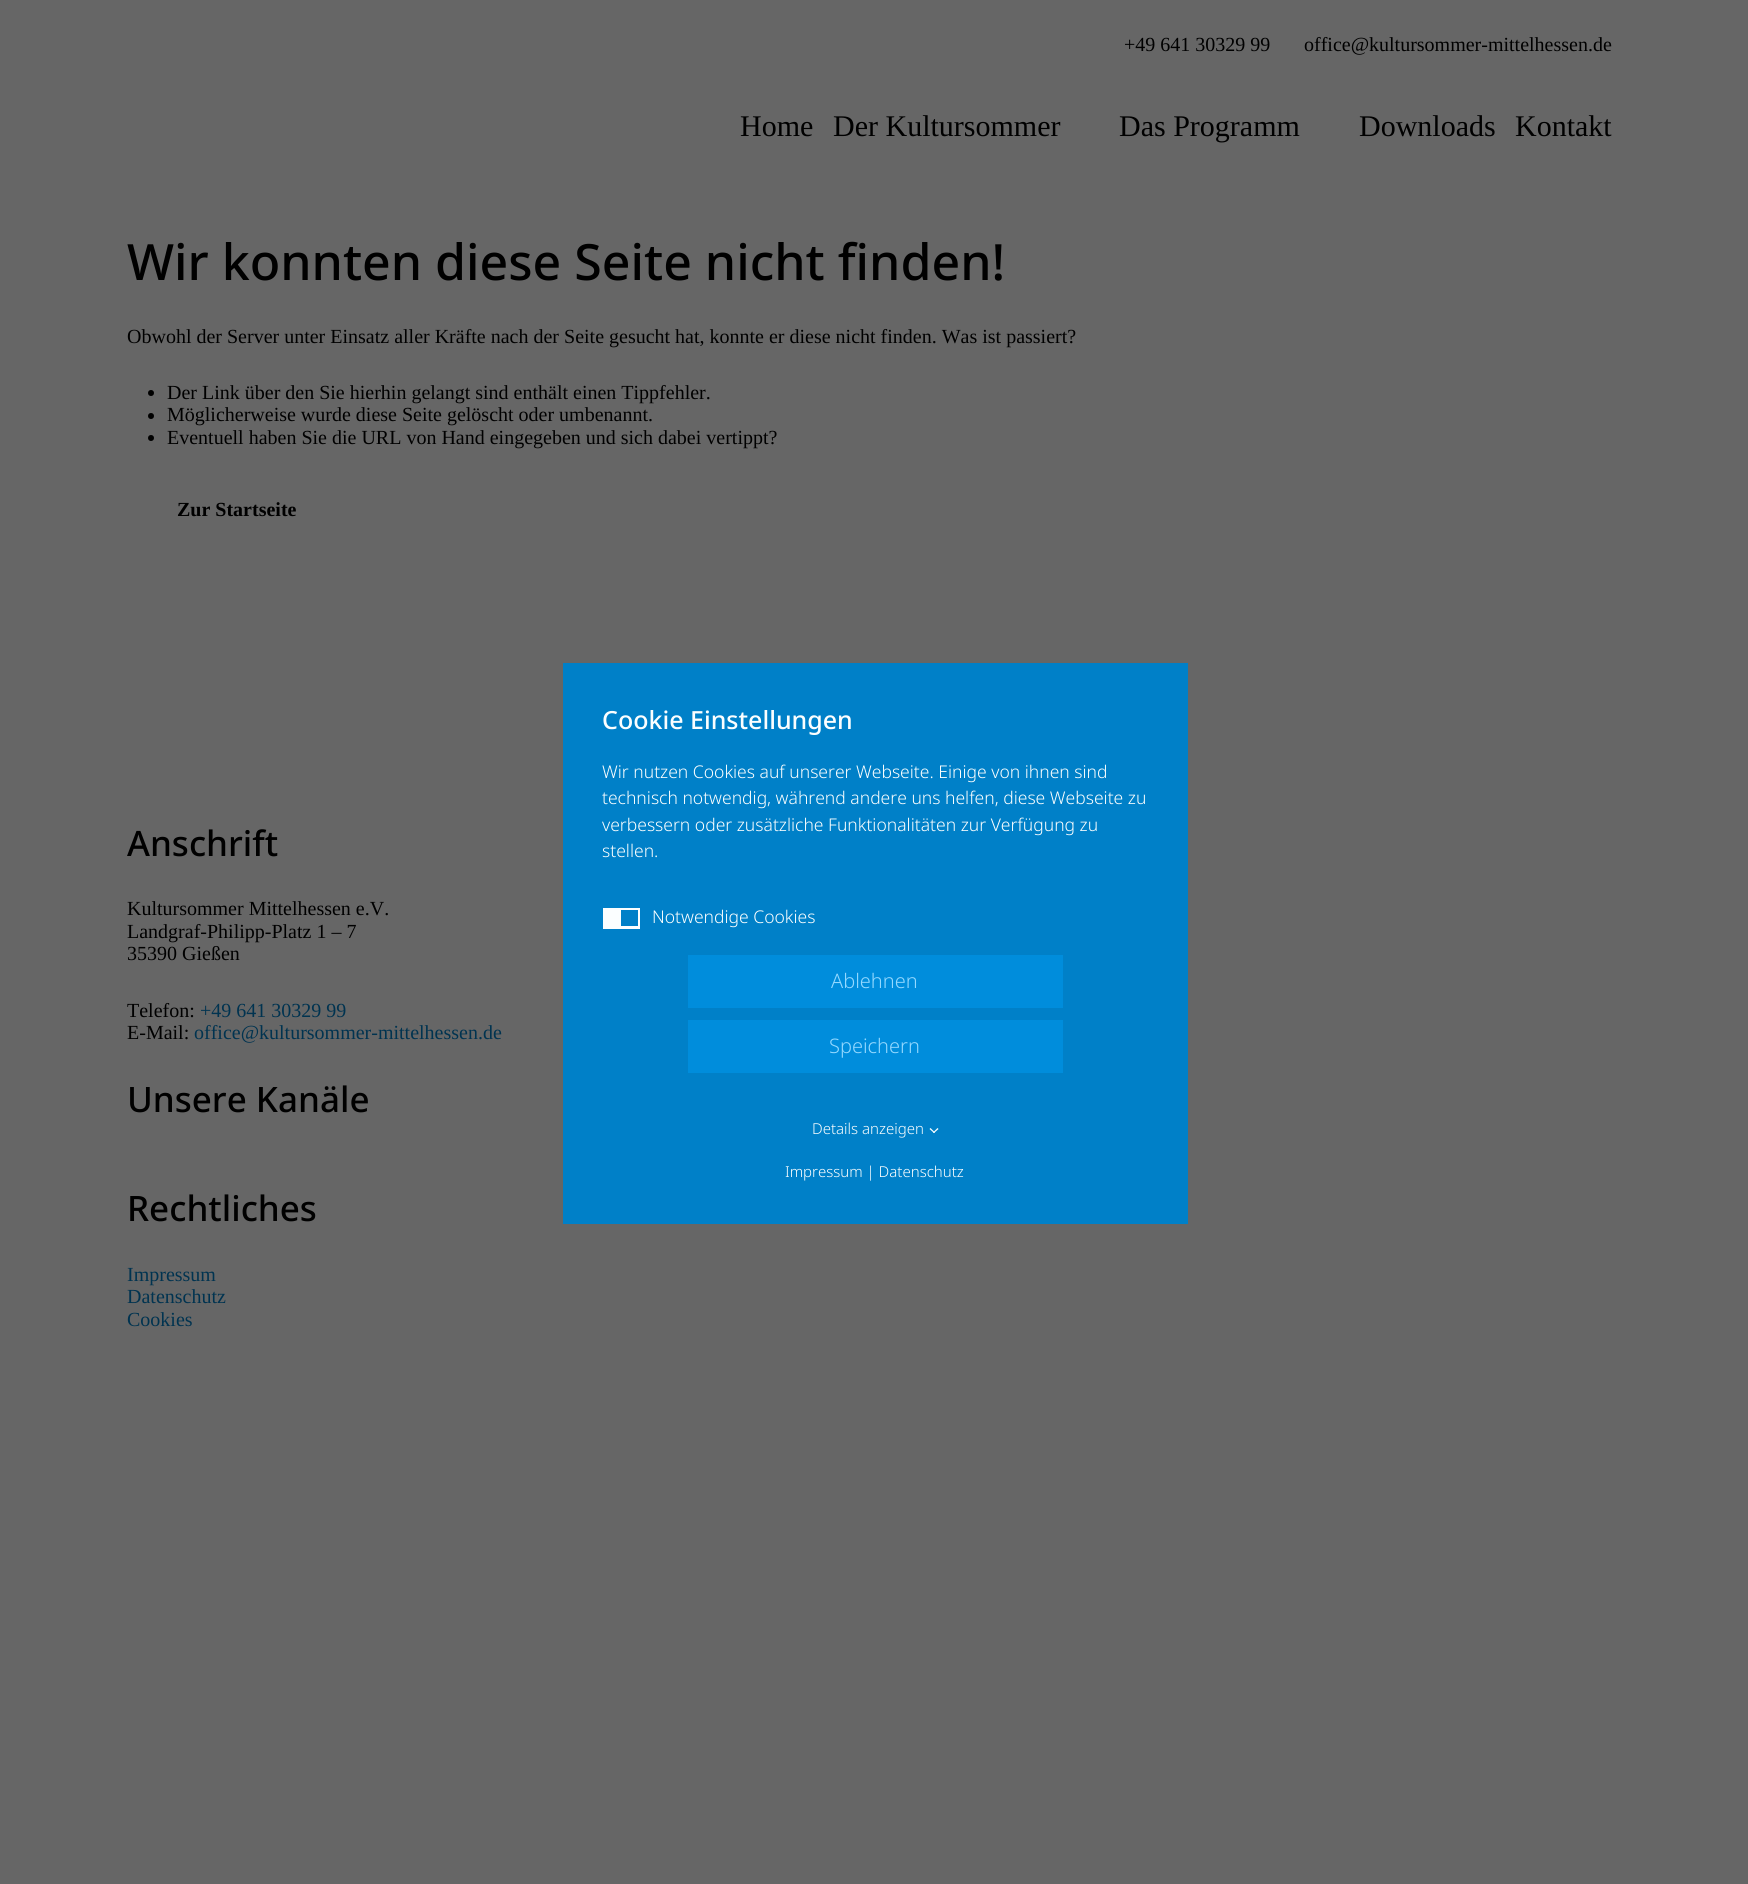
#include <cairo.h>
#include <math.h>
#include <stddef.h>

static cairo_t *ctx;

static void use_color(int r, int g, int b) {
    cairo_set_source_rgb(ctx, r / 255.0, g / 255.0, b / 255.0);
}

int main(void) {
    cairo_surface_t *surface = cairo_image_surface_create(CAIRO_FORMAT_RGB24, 1748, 1884);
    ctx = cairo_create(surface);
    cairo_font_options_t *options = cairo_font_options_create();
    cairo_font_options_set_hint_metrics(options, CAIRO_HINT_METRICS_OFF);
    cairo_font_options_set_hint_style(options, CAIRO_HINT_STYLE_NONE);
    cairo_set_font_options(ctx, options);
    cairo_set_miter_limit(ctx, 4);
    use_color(102, 102, 102);
    cairo_paint(ctx);
    cairo_select_font_face(ctx, "Liberation Serif", CAIRO_FONT_SLANT_NORMAL, CAIRO_FONT_WEIGHT_NORMAL);
    cairo_set_font_size(ctx, 20);
    use_color(0, 0, 0);
    cairo_move_to(ctx, 1124, 51);
    cairo_show_text(ctx, "+49 641 30329 99");
    cairo_move_to(ctx, 1304, 51);
    cairo_show_text(ctx, "office@kultursommer-mittelhessen.de");
    cairo_set_font_size(ctx, 30);
    cairo_move_to(ctx, 740, 136);
    cairo_show_text(ctx, "Home");
    cairo_move_to(ctx, 833, 136);
    cairo_show_text(ctx, "Der Kultursommer");
    cairo_move_to(ctx, 1119, 136);
    cairo_show_text(ctx, "Das Programm");
    cairo_move_to(ctx, 1359, 136);
    cairo_show_text(ctx, "Downloads");
    cairo_move_to(ctx, 1515, 136);
    cairo_show_text(ctx, "Kontakt");
    cairo_select_font_face(ctx, "Noto Sans Medium", CAIRO_FONT_SLANT_NORMAL, CAIRO_FONT_WEIGHT_NORMAL);
    cairo_set_font_size(ctx, 50);
    cairo_move_to(ctx, 127, 280);
    cairo_show_text(ctx, "Wir konnten diese Seite nicht finden!");
    cairo_select_font_face(ctx, "Liberation Serif", CAIRO_FONT_SLANT_NORMAL, CAIRO_FONT_WEIGHT_NORMAL);
    cairo_set_font_size(ctx, 20);
    cairo_move_to(ctx, 127, 343);
    cairo_show_text(ctx, "Obwohl der Server unter Einsatz aller Kräfte nach der Seite gesucht hat, konnte er diese nicht finden. Was ist passiert?");
    cairo_new_path(ctx);
    cairo_arc(ctx, 151, 393, 3, 0, 2 * M_PI);
    cairo_fill(ctx);
    cairo_move_to(ctx, 167, 399);
    cairo_show_text(ctx, "Der Link über den Sie hierhin gelangt sind enthält einen Tippfehler.");
    cairo_new_path(ctx);
    cairo_arc(ctx, 151, 416, 3, 0, 2 * M_PI);
    cairo_fill(ctx);
    cairo_move_to(ctx, 167, 421);
    cairo_show_text(ctx, "Möglicherweise wurde diese Seite gelöscht oder umbenannt.");
    cairo_new_path(ctx);
    cairo_arc(ctx, 151, 438, 3, 0, 2 * M_PI);
    cairo_fill(ctx);
    cairo_move_to(ctx, 167, 444);
    cairo_show_text(ctx, "Eventuell haben Sie die URL von Hand eingegeben und sich dabei vertippt?");
    cairo_select_font_face(ctx, "Liberation Serif", CAIRO_FONT_SLANT_NORMAL, CAIRO_FONT_WEIGHT_BOLD);
    cairo_move_to(ctx, 177, 516);
    cairo_show_text(ctx, "Zur Startseite");
    cairo_select_font_face(ctx, "Noto Sans Medium", CAIRO_FONT_SLANT_NORMAL, CAIRO_FONT_WEIGHT_NORMAL);
    cairo_set_font_size(ctx, 35);
    cairo_move_to(ctx, 127, 856);
    cairo_show_text(ctx, "Anschrift");
    cairo_select_font_face(ctx, "Liberation Serif", CAIRO_FONT_SLANT_NORMAL, CAIRO_FONT_WEIGHT_NORMAL);
    cairo_set_font_size(ctx, 20);
    cairo_move_to(ctx, 127, 915);
    cairo_show_text(ctx, "Kultursommer Mittelhessen e.V.");
    cairo_move_to(ctx, 127, 938);
    cairo_show_text(ctx, "Landgraf-Philipp-Platz 1 – 7");
    cairo_move_to(ctx, 127, 960);
    cairo_show_text(ctx, "35390 Gießen");
    cairo_move_to(ctx, 127, 1017);
    cairo_show_text(ctx, "Telefon:");
    use_color(0, 51, 80);
    cairo_move_to(ctx, 200, 1017);
    cairo_show_text(ctx, "+49 641 30329 99");
    use_color(0, 0, 0);
    cairo_move_to(ctx, 127, 1039);
    cairo_show_text(ctx, "E-Mail:");
    use_color(0, 51, 80);
    cairo_move_to(ctx, 194, 1039);
    cairo_show_text(ctx, "office@kultursommer-mittelhessen.de");
    cairo_select_font_face(ctx, "Noto Sans Medium", CAIRO_FONT_SLANT_NORMAL, CAIRO_FONT_WEIGHT_NORMAL);
    cairo_set_font_size(ctx, 35);
    use_color(0, 0, 0);
    cairo_move_to(ctx, 127, 1112);
    cairo_show_text(ctx, "Unsere Kanäle");
    cairo_move_to(ctx, 127, 1221);
    cairo_show_text(ctx, "Rechtliches");
    cairo_select_font_face(ctx, "Liberation Serif", CAIRO_FONT_SLANT_NORMAL, CAIRO_FONT_WEIGHT_NORMAL);
    cairo_set_font_size(ctx, 20);
    use_color(0, 51, 80);
    cairo_move_to(ctx, 127, 1281);
    cairo_show_text(ctx, "Impressum");
    cairo_move_to(ctx, 127, 1303);
    cairo_show_text(ctx, "Datenschutz");
    cairo_move_to(ctx, 127, 1326);
    cairo_show_text(ctx, "Cookies");
    use_color(0, 128, 200);
    cairo_rectangle(ctx, 563, 663, 625, 561);
    cairo_fill(ctx);
    cairo_select_font_face(ctx, "Noto Sans Medium", CAIRO_FONT_SLANT_NORMAL, CAIRO_FONT_WEIGHT_NORMAL);
    cairo_set_font_size(ctx, 25);
    use_color(251, 254, 255);
    cairo_move_to(ctx, 602, 729);
    cairo_show_text(ctx, "Cookie Einstellungen");
    cairo_select_font_face(ctx, "Noto Sans Light", CAIRO_FONT_SLANT_NORMAL, CAIRO_FONT_WEIGHT_NORMAL);
    cairo_set_font_size(ctx, 17.5);
    cairo_move_to(ctx, 602, 778);
    cairo_show_text(ctx, "Wir nutzen Cookies auf unserer Webseite. Einige von ihnen sind");
    cairo_move_to(ctx, 602, 804);
    cairo_show_text(ctx, "technisch notwendig, während andere uns helfen, diese Webseite zu");
    cairo_move_to(ctx, 602, 831);
    cairo_show_text(ctx, "verbessern oder zusätzliche Funktionalitäten zur Verfügung zu");
    cairo_move_to(ctx, 602, 857);
    cairo_show_text(ctx, "stellen.");
    cairo_rectangle(ctx, 603, 908, 37, 21);
    cairo_fill(ctx);
    use_color(0, 128, 200);
    cairo_rectangle(ctx, 621, 910, 17, 16);
    cairo_fill(ctx);
    use_color(251, 254, 255);
    cairo_move_to(ctx, 652, 923);
    cairo_show_text(ctx, "Notwendige Cookies");
    use_color(0, 141, 220);
    cairo_rectangle(ctx, 688, 955, 375, 53);
    cairo_fill(ctx);
    cairo_set_font_size(ctx, 20);
    use_color(149, 217, 255);
    cairo_move_to(ctx, 831, 988);
    cairo_show_text(ctx, "Ablehnen");
    use_color(0, 141, 220);
    cairo_rectangle(ctx, 688, 1020, 375, 53);
    cairo_fill(ctx);
    use_color(149, 217, 255);
    cairo_move_to(ctx, 829, 1053);
    cairo_show_text(ctx, "Speichern");
    cairo_set_font_size(ctx, 15);
    use_color(251, 254, 255);
    cairo_move_to(ctx, 812, 1134);
    cairo_show_text(ctx, "Details anzeigen");
    cairo_new_path(ctx);
    cairo_move_to(ctx, 937.5, 1128);
    cairo_line_to(ctx, 938.5, 1129);
    cairo_line_to(ctx, 934, 1133);
    cairo_line_to(ctx, 933, 1132.5);
    cairo_close_path(ctx);
    cairo_fill(ctx);
    cairo_new_path(ctx);
    cairo_move_to(ctx, 930.5, 1128);
    cairo_line_to(ctx, 935, 1132.5);
    cairo_line_to(ctx, 934, 1133);
    cairo_line_to(ctx, 929.5, 1129);
    cairo_close_path(ctx);
    cairo_fill(ctx);
    cairo_move_to(ctx, 785, 1177);
    cairo_show_text(ctx, "Impressum | Datenschutz");
    cairo_surface_write_to_png(surface, "result.png");
    cairo_font_options_destroy(options);
    cairo_destroy(ctx);
    cairo_surface_destroy(surface);
    return 0;
}
